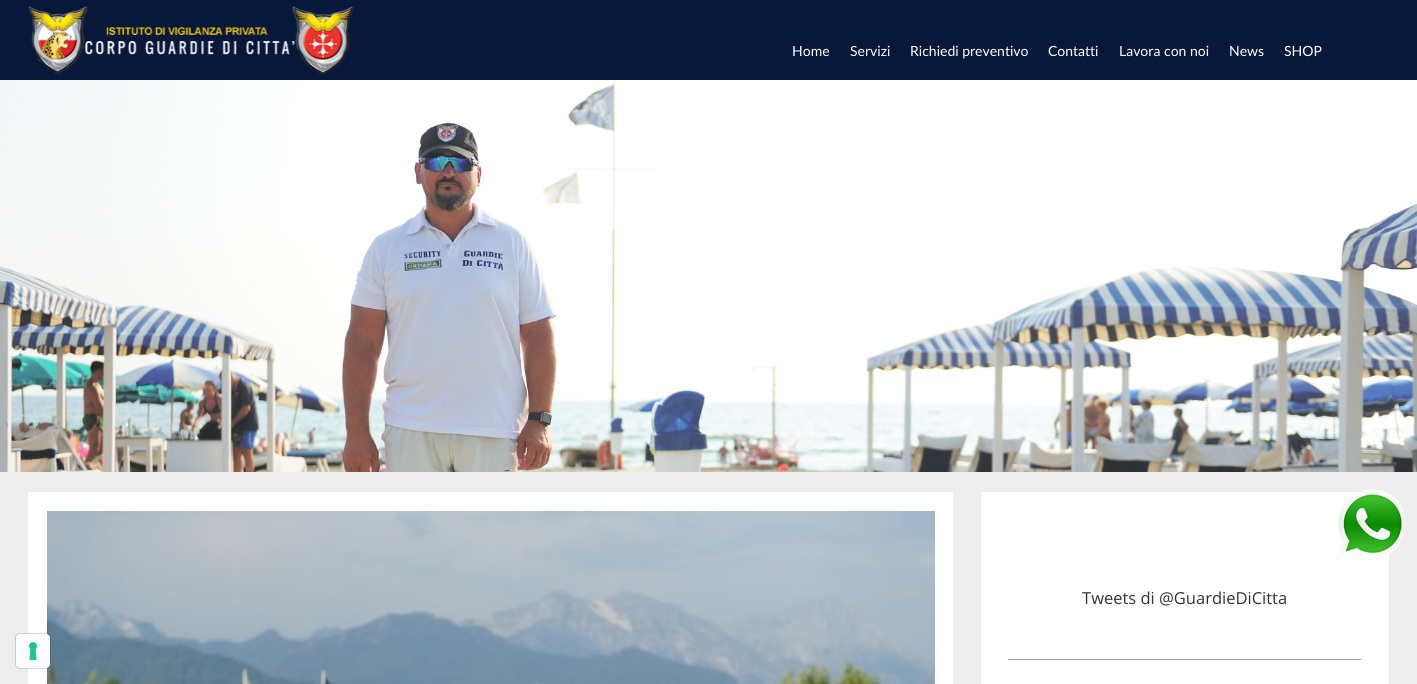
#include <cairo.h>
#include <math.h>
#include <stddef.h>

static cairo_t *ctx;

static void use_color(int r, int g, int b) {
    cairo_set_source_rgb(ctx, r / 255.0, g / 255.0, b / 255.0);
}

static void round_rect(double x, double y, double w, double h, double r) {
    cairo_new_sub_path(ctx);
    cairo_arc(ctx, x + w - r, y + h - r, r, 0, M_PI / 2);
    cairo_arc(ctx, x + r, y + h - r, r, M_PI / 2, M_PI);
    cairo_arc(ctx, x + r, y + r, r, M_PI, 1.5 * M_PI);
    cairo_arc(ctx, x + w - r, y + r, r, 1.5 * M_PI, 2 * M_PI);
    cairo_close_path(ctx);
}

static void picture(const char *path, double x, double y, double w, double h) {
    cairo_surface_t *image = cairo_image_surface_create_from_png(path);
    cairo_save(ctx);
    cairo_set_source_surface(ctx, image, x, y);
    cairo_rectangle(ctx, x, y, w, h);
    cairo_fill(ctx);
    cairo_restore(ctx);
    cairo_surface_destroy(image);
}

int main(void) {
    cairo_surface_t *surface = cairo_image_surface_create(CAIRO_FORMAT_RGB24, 1417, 684);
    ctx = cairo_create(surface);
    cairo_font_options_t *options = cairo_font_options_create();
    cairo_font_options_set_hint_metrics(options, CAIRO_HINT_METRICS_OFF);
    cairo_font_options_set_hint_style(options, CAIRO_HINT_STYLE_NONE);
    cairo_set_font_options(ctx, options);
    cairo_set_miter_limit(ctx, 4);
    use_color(255, 255, 255);
    cairo_paint(ctx);
    use_color(8, 24, 58);
    cairo_rectangle(ctx, 0, 0, 1417, 80);
    cairo_fill(ctx);
    picture("img1.png", 28, 6, 327, 69);
    cairo_select_font_face(ctx, "Lato", CAIRO_FONT_SLANT_NORMAL, CAIRO_FONT_WEIGHT_NORMAL);
    cairo_set_font_size(ctx, 14);
    use_color(255, 255, 255);
    cairo_move_to(ctx, 792, 56);
    cairo_show_text(ctx, "Home");
    cairo_move_to(ctx, 850, 56);
    cairo_show_text(ctx, "Servizi");
    cairo_move_to(ctx, 910, 56);
    cairo_show_text(ctx, "Richiedi preventivo");
    cairo_move_to(ctx, 1048, 56);
    cairo_show_text(ctx, "Contatti");
    cairo_move_to(ctx, 1119, 56);
    cairo_show_text(ctx, "Lavora con noi");
    cairo_move_to(ctx, 1229, 56);
    cairo_show_text(ctx, "News");
    cairo_move_to(ctx, 1284, 56);
    cairo_show_text(ctx, "SHOP");
    picture("img2.png", 0, 80, 1417, 392);
    use_color(238, 238, 238);
    cairo_rectangle(ctx, 0, 472, 1417, 212);
    cairo_fill(ctx);
    use_color(255, 255, 255);
    cairo_rectangle(ctx, 981, 492, 408, 192);
    cairo_fill(ctx);
    picture("img3.png", 1337, 489, 70, 71);
    cairo_rectangle(ctx, 28, 492, 925, 192);
    cairo_fill(ctx);
    picture("img4.png", 47, 511, 888, 173);
    cairo_select_font_face(ctx, "Open Sans", CAIRO_FONT_SLANT_NORMAL, CAIRO_FONT_WEIGHT_NORMAL);
    cairo_set_font_size(ctx, 16.5);
    use_color(51, 51, 51);
    cairo_move_to(ctx, 1082, 604);
    cairo_show_text(ctx, "Tweets di @GuardieDiCitta");
    use_color(153, 153, 153);
    cairo_rectangle(ctx, 1008, 659, 353, 1);
    cairo_fill(ctx);
    round_rect(15.5, 633.5, 35, 35, 4.5);
    cairo_set_source_rgba(ctx, 0, 0, 0, 0.15);
    cairo_set_line_width(ctx, 1);
    cairo_stroke(ctx);
    use_color(255, 255, 255);
    round_rect(16, 634, 34, 34, 4);
    cairo_fill(ctx);
    picture("img5.png", 29, 642, 8, 18);
    cairo_surface_write_to_png(surface, "result.png");
    cairo_font_options_destroy(options);
    cairo_destroy(ctx);
    cairo_surface_destroy(surface);
    return 0;
}
